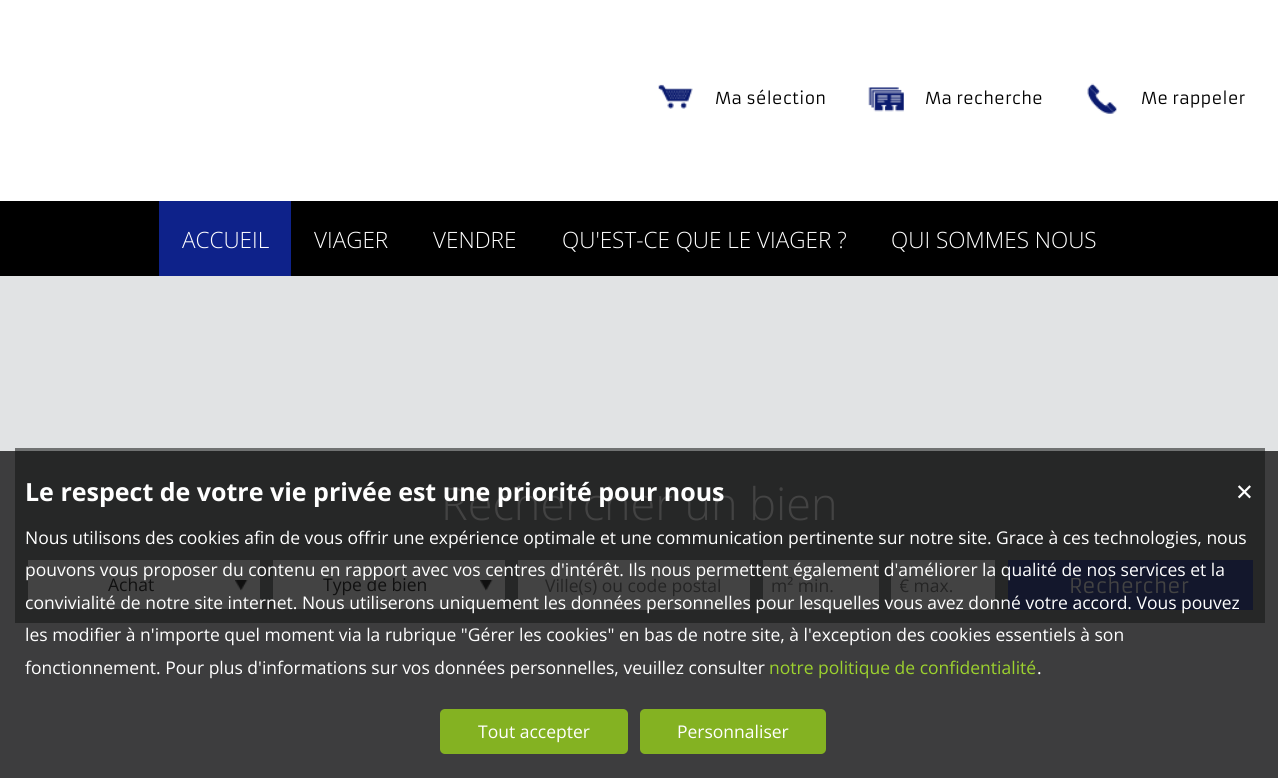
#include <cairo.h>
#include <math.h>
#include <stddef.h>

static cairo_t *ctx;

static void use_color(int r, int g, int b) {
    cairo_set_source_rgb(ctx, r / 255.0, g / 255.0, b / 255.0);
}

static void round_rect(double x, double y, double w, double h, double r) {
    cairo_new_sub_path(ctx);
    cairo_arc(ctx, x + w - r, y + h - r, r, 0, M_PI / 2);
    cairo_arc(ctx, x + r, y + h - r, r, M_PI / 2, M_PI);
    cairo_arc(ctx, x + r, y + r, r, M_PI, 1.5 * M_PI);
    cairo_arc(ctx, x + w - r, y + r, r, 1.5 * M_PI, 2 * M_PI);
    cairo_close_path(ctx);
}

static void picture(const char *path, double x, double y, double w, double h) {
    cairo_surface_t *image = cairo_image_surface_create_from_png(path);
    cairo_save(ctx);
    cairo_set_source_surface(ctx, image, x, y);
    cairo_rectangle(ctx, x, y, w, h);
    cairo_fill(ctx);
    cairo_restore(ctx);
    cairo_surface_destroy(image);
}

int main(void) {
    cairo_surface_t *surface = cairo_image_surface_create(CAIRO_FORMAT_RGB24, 1278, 778);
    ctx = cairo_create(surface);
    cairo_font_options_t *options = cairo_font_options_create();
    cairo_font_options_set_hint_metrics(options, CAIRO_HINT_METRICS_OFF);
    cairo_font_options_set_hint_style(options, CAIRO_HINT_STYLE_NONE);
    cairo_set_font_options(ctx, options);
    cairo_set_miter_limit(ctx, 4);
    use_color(225, 227, 228);
    cairo_paint(ctx);
    use_color(61, 61, 62);
    cairo_rectangle(ctx, 0, 451, 1278, 327);
    cairo_fill(ctx);
    use_color(255, 255, 255);
    cairo_rectangle(ctx, 0, 0, 1278, 201);
    cairo_fill(ctx);
    picture("img1.png", 658, 84, 35, 25);
    cairo_select_font_face(ctx, "Armata", CAIRO_FONT_SLANT_NORMAL, CAIRO_FONT_WEIGHT_NORMAL);
    cairo_set_font_size(ctx, 16.25);
    use_color(0, 0, 0);
    cairo_move_to(ctx, 715, 104);
    cairo_show_text(ctx, "Ma sélection");
    picture("img2.png", 868, 87, 36, 25);
    cairo_move_to(ctx, 925, 104);
    cairo_show_text(ctx, "Ma recherche");
    picture("img3.png", 1087, 83, 30, 31);
    cairo_move_to(ctx, 1141, 104);
    cairo_show_text(ctx, "Me rappeler");
    cairo_rectangle(ctx, 0, 201, 1278, 75);
    cairo_fill(ctx);
    use_color(14, 34, 138);
    cairo_rectangle(ctx, 159, 201, 132, 75);
    cairo_fill(ctx);
    cairo_select_font_face(ctx, "Open Sans Light", CAIRO_FONT_SLANT_NORMAL, CAIRO_FONT_WEIGHT_NORMAL);
    cairo_set_font_size(ctx, 22.5);
    use_color(255, 255, 255);
    cairo_move_to(ctx, 182, 248);
    cairo_show_text(ctx, "ACCUEIL");
    cairo_move_to(ctx, 314, 248);
    cairo_show_text(ctx, "VIAGER");
    cairo_move_to(ctx, 433, 248);
    cairo_show_text(ctx, "VENDRE");
    cairo_move_to(ctx, 562, 248);
    cairo_show_text(ctx, "QU'EST-CE QUE LE VIAGER ?");
    cairo_move_to(ctx, 891, 248);
    cairo_show_text(ctx, "QUI SOMMES NOUS");
    use_color(112, 114, 114);
    cairo_rectangle(ctx, 15, 448, 1250, 3);
    cairo_fill(ctx);
    use_color(38, 39, 39);
    cairo_rectangle(ctx, 15, 451, 1250, 172);
    cairo_fill(ctx);
    cairo_set_font_size(ctx, 45);
    use_color(67, 67, 67);
    cairo_move_to(ctx, 441, 520);
    cairo_show_text(ctx, "Rechercher un bien");
    cairo_rectangle(ctx, 28, 560, 232, 49);
    cairo_fill(ctx);
    cairo_select_font_face(ctx, "Open Sans", CAIRO_FONT_SLANT_NORMAL, CAIRO_FONT_WEIGHT_NORMAL);
    cairo_set_font_size(ctx, 17.5);
    use_color(16, 16, 16);
    cairo_move_to(ctx, 108, 591);
    cairo_show_text(ctx, "Achat");
    picture("img4.png", 235, 580, 13, 11);
    use_color(67, 67, 67);
    cairo_rectangle(ctx, 273, 560, 232, 49);
    cairo_fill(ctx);
    use_color(16, 16, 16);
    cairo_move_to(ctx, 323, 591);
    cairo_show_text(ctx, "Type de bien");
    picture("img5.png", 480, 580, 13, 11);
    use_color(67, 67, 67);
    cairo_rectangle(ctx, 518, 560, 232, 50);
    cairo_fill(ctx);
    use_color(36, 36, 36);
    cairo_move_to(ctx, 545, 592);
    cairo_show_text(ctx, "Ville(s) ou code postal");
    use_color(67, 67, 67);
    cairo_rectangle(ctx, 763, 560, 116, 50);
    cairo_fill(ctx);
    use_color(36, 36, 36);
    cairo_move_to(ctx, 771, 592);
    cairo_show_text(ctx, "m² min.");
    use_color(67, 67, 67);
    cairo_rectangle(ctx, 891, 560, 104, 50);
    cairo_fill(ctx);
    cairo_save(ctx);
    cairo_rectangle(ctx, 900, 574, 86, 24);
    cairo_clip(ctx);
    use_color(36, 36, 36);
    cairo_move_to(ctx, 899, 592);
    cairo_show_text(ctx, "€ max.");
    cairo_restore(ctx);
    use_color(19, 23, 44);
    cairo_rectangle(ctx, 1008, 560, 245, 50);
    cairo_fill(ctx);
    cairo_select_font_face(ctx, "Armata", CAIRO_FONT_SLANT_NORMAL, CAIRO_FONT_WEIGHT_NORMAL);
    cairo_set_font_size(ctx, 20);
    use_color(67, 67, 67);
    cairo_move_to(ctx, 1069, 593);
    cairo_show_text(ctx, "Rechercher");
    cairo_select_font_face(ctx, "Open Sans", CAIRO_FONT_SLANT_NORMAL, CAIRO_FONT_WEIGHT_BOLD);
    cairo_set_font_size(ctx, 25);
    use_color(255, 255, 255);
    cairo_move_to(ctx, 25, 501);
    cairo_show_text(ctx, "Le respect de votre vie privée est une priorité pour nous");
    cairo_select_font_face(ctx, "DejaVu Sans", CAIRO_FONT_SLANT_NORMAL, CAIRO_FONT_WEIGHT_NORMAL);
    cairo_set_font_size(ctx, 22.5);
    cairo_move_to(ctx, 1235, 500);
    cairo_show_text(ctx, "✕");
    cairo_select_font_face(ctx, "Open Sans", CAIRO_FONT_SLANT_NORMAL, CAIRO_FONT_WEIGHT_NORMAL);
    cairo_set_font_size(ctx, 17.5);
    cairo_move_to(ctx, 25, 544);
    cairo_show_text(ctx, "Nous utilisons des cookies afin de vous offrir une expérience optimale et une communication pertinente sur notre site. Grace à ces technologies, nous");
    cairo_move_to(ctx, 25, 576);
    cairo_show_text(ctx, "pouvons vous proposer du contenu en rapport avec vos centres d'intérêt. Ils nous permettent également d'améliorer la qualité de nos services et la");
    cairo_move_to(ctx, 25, 609);
    cairo_show_text(ctx, "convivialité de notre site internet. Nous utiliserons uniquement les données personnelles pour lesquelles vous avez donné votre accord. Vous pouvez");
    cairo_move_to(ctx, 25, 641);
    cairo_show_text(ctx, "les modifier à n'importe quel moment via la rubrique \"Gérer les cookies\" en bas de notre site, à l'exception des cookies essentiels à son");
    cairo_move_to(ctx, 25, 674);
    cairo_show_text(ctx, "fonctionnement. Pour plus d'informations sur vos données personnelles, veuillez consulter");
    use_color(156, 210, 46);
    cairo_move_to(ctx, 769, 674);
    cairo_show_text(ctx, "notre politique de confidentialité");
    use_color(255, 255, 255);
    cairo_move_to(ctx, 1037, 674);
    cairo_show_text(ctx, ".");
    use_color(132, 178, 34);
    round_rect(440, 709, 188, 45, 5);
    cairo_fill(ctx);
    use_color(255, 255, 255);
    cairo_move_to(ctx, 478, 738);
    cairo_show_text(ctx, "Tout accepter");
    use_color(132, 178, 34);
    round_rect(640, 709, 186, 45, 5);
    cairo_fill(ctx);
    use_color(255, 255, 255);
    cairo_move_to(ctx, 677, 738);
    cairo_show_text(ctx, "Personnaliser");
    cairo_surface_write_to_png(surface, "result.png");
    cairo_font_options_destroy(options);
    cairo_destroy(ctx);
    cairo_surface_destroy(surface);
    return 0;
}
